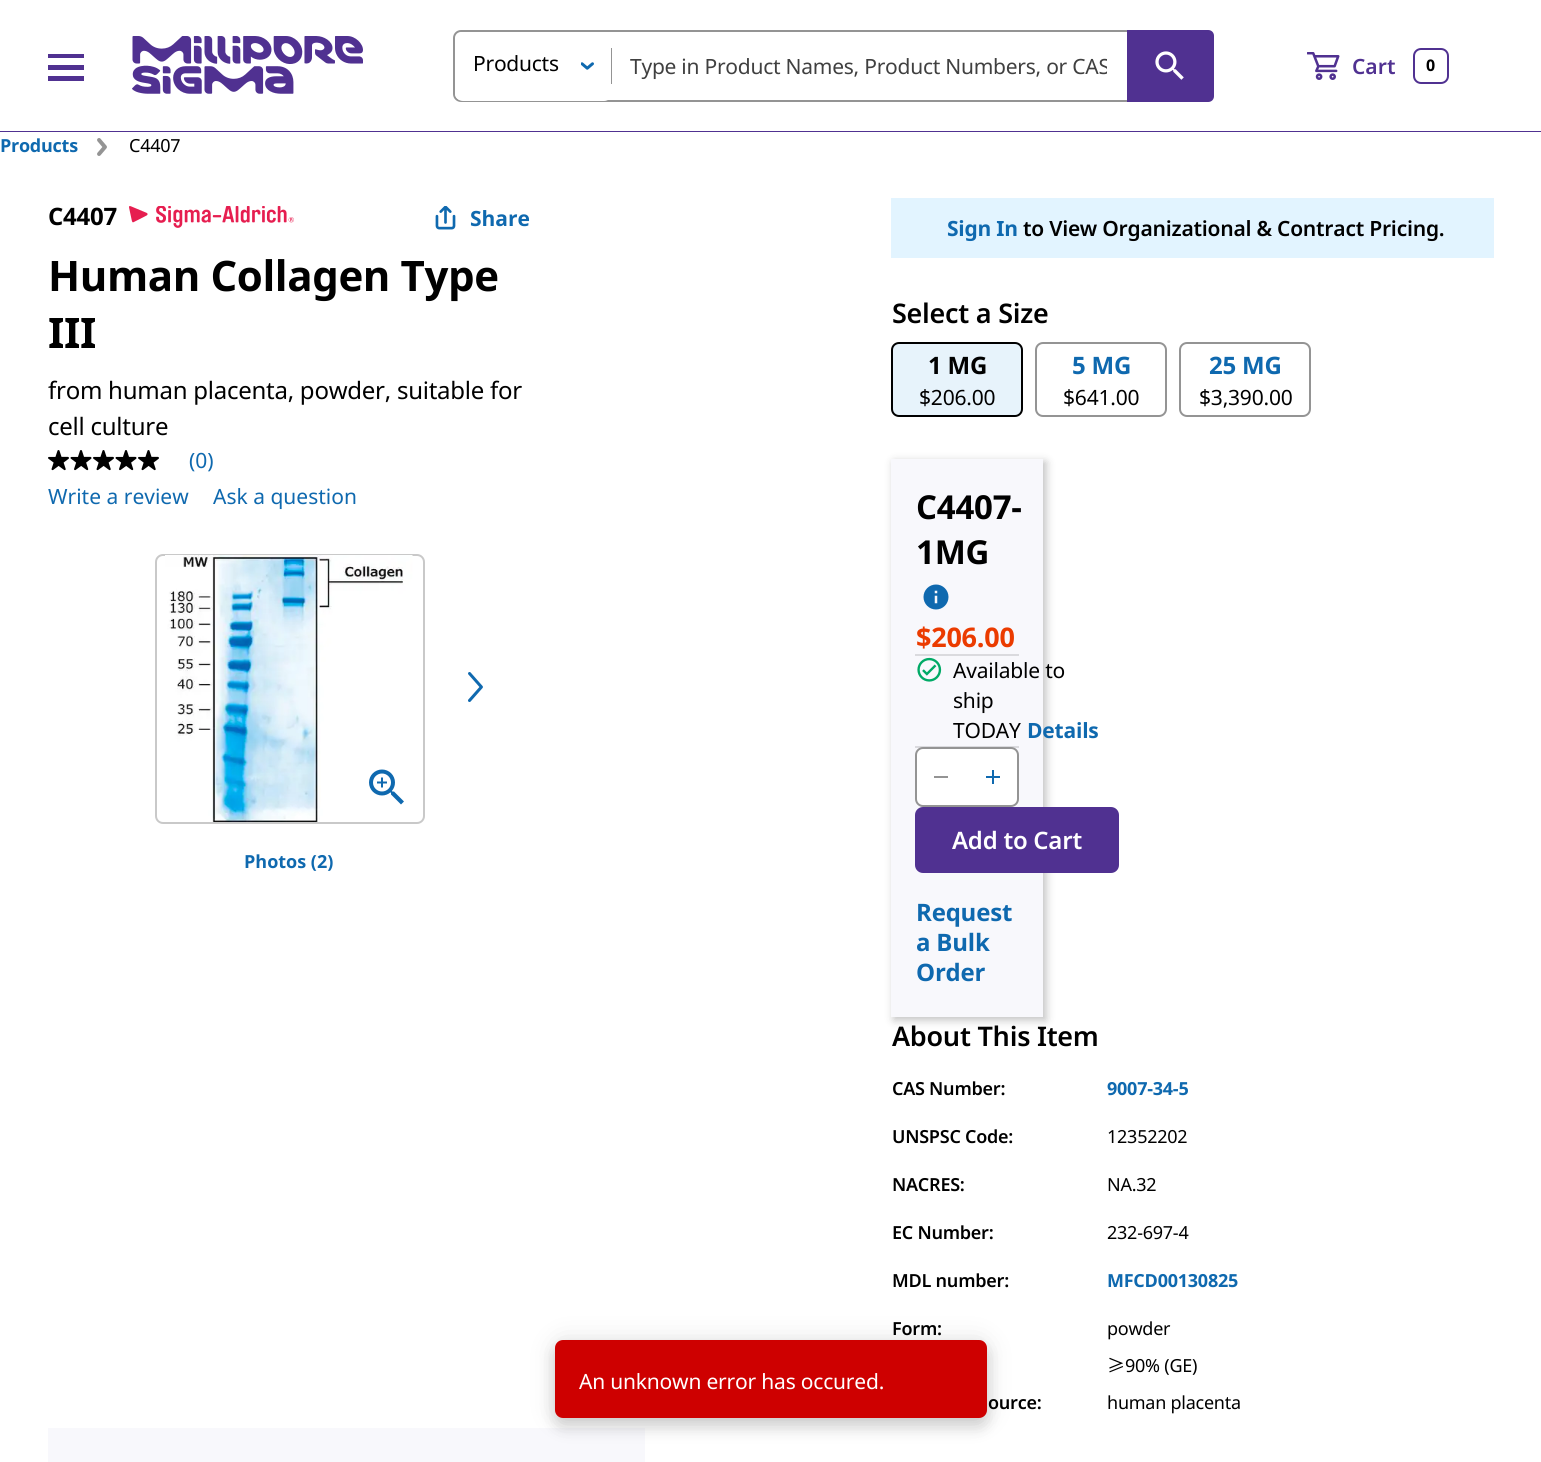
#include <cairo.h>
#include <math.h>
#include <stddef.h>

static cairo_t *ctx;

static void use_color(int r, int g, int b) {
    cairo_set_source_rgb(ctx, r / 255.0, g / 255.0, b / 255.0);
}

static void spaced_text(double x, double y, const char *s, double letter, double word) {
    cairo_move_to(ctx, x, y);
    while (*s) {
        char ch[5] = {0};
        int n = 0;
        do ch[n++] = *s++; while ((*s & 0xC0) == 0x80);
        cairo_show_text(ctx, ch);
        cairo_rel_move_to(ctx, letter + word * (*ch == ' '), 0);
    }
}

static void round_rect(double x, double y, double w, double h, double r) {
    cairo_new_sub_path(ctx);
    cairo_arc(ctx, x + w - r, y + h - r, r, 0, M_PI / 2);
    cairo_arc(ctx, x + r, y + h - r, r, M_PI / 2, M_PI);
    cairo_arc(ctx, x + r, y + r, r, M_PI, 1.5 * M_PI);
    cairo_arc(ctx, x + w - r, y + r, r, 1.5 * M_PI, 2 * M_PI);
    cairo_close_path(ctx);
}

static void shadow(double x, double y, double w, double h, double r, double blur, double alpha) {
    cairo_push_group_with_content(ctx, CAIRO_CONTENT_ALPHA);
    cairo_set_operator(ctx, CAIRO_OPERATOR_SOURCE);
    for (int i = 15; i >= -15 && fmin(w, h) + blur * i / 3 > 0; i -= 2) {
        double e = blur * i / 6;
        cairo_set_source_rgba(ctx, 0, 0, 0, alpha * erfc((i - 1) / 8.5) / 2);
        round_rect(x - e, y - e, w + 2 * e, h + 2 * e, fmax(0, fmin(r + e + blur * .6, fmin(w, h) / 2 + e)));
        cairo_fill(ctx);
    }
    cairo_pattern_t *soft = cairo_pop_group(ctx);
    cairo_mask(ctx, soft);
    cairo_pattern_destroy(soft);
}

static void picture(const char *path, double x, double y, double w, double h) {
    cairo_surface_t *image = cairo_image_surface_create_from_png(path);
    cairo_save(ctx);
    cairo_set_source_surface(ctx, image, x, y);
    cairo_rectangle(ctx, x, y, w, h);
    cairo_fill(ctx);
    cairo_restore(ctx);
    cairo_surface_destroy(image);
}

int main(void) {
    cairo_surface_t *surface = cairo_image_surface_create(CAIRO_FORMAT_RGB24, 1541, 1462);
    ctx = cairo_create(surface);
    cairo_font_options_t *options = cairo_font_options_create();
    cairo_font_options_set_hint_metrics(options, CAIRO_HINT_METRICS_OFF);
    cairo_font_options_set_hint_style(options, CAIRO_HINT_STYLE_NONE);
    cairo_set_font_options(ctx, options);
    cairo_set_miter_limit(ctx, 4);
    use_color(255, 255, 255);
    cairo_paint(ctx);
    use_color(80, 49, 145);
    cairo_rectangle(ctx, 0, 131, 1541, 1);
    cairo_fill(ctx);
    cairo_save(ctx);
    cairo_rectangle(ctx, 48, 50, 36, 36);
    cairo_clip(ctx);
    cairo_new_path(ctx);
    cairo_move_to(ctx, 46, 81);
    cairo_line_to(ctx, 86, 81);
    cairo_line_to(ctx, 86, 76);
    cairo_line_to(ctx, 46, 76);
    cairo_close_path(ctx);
    cairo_move_to(ctx, 46, 70);
    cairo_line_to(ctx, 86, 70);
    cairo_line_to(ctx, 86, 65);
    cairo_line_to(ctx, 46, 65);
    cairo_close_path(ctx);
    cairo_move_to(ctx, 46, 54);
    cairo_line_to(ctx, 46, 58);
    cairo_line_to(ctx, 86, 58);
    cairo_line_to(ctx, 86, 54);
    cairo_close_path(ctx);
    cairo_fill(ctx);
    cairo_restore(ctx);
    picture("img1.png", 132, 36, 231, 58);
    round_rect(454, 31, 759, 70, 7);
    use_color(148, 148, 148);
    cairo_stroke(ctx);
    use_color(255, 255, 255);
    round_rect(455, 32, 157, 69, 8);
    cairo_fill(ctx);
    cairo_select_font_face(ctx, "Noto Sans", CAIRO_FONT_SLANT_NORMAL, CAIRO_FONT_WEIGHT_NORMAL);
    cairo_set_font_size(ctx, 21);
    use_color(0, 0, 0);
    spaced_text(473, 71, "Products", -0.25, 0);
    use_color(148, 148, 148);
    cairo_rectangle(ctx, 611, 48, 1, 36);
    cairo_fill(ctx);
    picture("img2.png", 581, 62, 13, 8);
    cairo_save(ctx);
    cairo_rectangle(ctx, 630, 53, 477, 28);
    cairo_clip(ctx);
    use_color(64, 64, 64);
    spaced_text(630, 74, "Type in Product Names, Product Numbers, or CAS", -0.25, 0);
    cairo_restore(ctx);
    use_color(80, 49, 145);
    cairo_new_path(ctx);
    cairo_move_to(ctx, 1128, 31);
    cairo_line_to(ctx, 1208, 31);
    cairo_curve_to(ctx, 1211, 31, 1213, 33, 1213, 36);
    cairo_line_to(ctx, 1213, 96);
    cairo_curve_to(ctx, 1213, 99, 1211, 101, 1208, 101);
    cairo_line_to(ctx, 1128, 101);
    cairo_close_path(ctx);
    cairo_fill_preserve(ctx);
    cairo_stroke(ctx);
    picture("img3.png", 1155, 51, 29, 29);
    picture("img4.png", 1307, 52, 33, 28);
    cairo_select_font_face(ctx, "Noto Sans SemiBold", CAIRO_FONT_SLANT_NORMAL, CAIRO_FONT_WEIGHT_NORMAL);
    cairo_move_to(ctx, 1352, 74);
    cairo_show_text(ctx, "Cart");
    round_rect(1414, 49, 34, 34, 7);
    cairo_stroke(ctx);
    cairo_select_font_face(ctx, "Noto Sans", CAIRO_FONT_SLANT_NORMAL, CAIRO_FONT_WEIGHT_BOLD);
    cairo_set_font_size(ctx, 16);
    use_color(0, 0, 0);
    cairo_move_to(ctx, 1426, 71);
    cairo_show_text(ctx, "0");
    cairo_set_font_size(ctx, 18);
    use_color(15, 105, 175);
    spaced_text(0, 152, "Products", -0.25, 0);
    picture("img5.png", 97, 138, 10, 18);
    cairo_select_font_face(ctx, "Noto Sans", CAIRO_FONT_SLANT_NORMAL, CAIRO_FONT_WEIGHT_NORMAL);
    use_color(0, 0, 0);
    spaced_text(129, 152, "C4407", -0.25, 0);
    cairo_select_font_face(ctx, "Noto Sans", CAIRO_FONT_SLANT_NORMAL, CAIRO_FONT_WEIGHT_BOLD);
    cairo_set_font_size(ctx, 24);
    spaced_text(48, 225, "C4407", -0.25, 0);
    picture("img6.png", 129, 206, 165, 22);
    picture("img7.png", 435, 206, 21, 24);
    cairo_set_font_size(ctx, 21);
    use_color(15, 105, 175);
    cairo_move_to(ctx, 470, 226);
    cairo_show_text(ctx, "Share");
    cairo_set_font_size(ctx, 42);
    use_color(0, 0, 0);
    spaced_text(48, 291, "Human Collagen Type", -0.4, 0);
    spaced_text(48, 348, "III", -0.4, 0);
    cairo_select_font_face(ctx, "Noto Sans", CAIRO_FONT_SLANT_NORMAL, CAIRO_FONT_WEIGHT_NORMAL);
    cairo_set_font_size(ctx, 24);
    spaced_text(48, 399, "from human placenta, powder, suitable for", -0.25, 0);
    spaced_text(48, 435, "cell culture", -0.25, 0);
    picture("img8.png", 48, 450, 21, 21);
    picture("img9.png", 70, 450, 22, 21);
    picture("img8.png", 93, 450, 21, 21);
    picture("img9.png", 115, 450, 22, 21);
    picture("img8.png", 138, 450, 21, 21);
    cairo_set_font_size(ctx, 21);
    use_color(15, 105, 175);
    cairo_move_to(ctx, 189, 468);
    cairo_show_text(ctx, "(0)");
    cairo_move_to(ctx, 48, 504);
    cairo_show_text(ctx, "Write a review");
    cairo_move_to(ctx, 213, 504);
    cairo_show_text(ctx, "Ask a question");
    round_rect(156, 555, 268, 268, 7);
    use_color(201, 201, 201);
    cairo_stroke(ctx);
    picture("img10.png", 165, 555, 248, 267);
    picture("img11.png", 369, 769, 35, 36);
    picture("img12.png", 468, 672, 15, 30);
    cairo_select_font_face(ctx, "Noto Sans", CAIRO_FONT_SLANT_NORMAL, CAIRO_FONT_WEIGHT_BOLD);
    cairo_set_font_size(ctx, 18);
    use_color(15, 105, 175);
    cairo_move_to(ctx, 244, 868);
    cairo_show_text(ctx, "Photos (2)");
    use_color(226, 244, 255);
    cairo_rectangle(ctx, 891, 198, 603, 60);
    cairo_fill(ctx);
    cairo_set_font_size(ctx, 21);
    use_color(15, 105, 175);
    spaced_text(947, 236, "Sign In", -0.25, 0);
    cairo_select_font_face(ctx, "Noto Sans SemiBold", CAIRO_FONT_SLANT_NORMAL, CAIRO_FONT_WEIGHT_NORMAL);
    use_color(0, 0, 0);
    spaced_text(1023, 236, "to View Organizational & Contract Pricing.", -0.25, 0);
    cairo_set_font_size(ctx, 27);
    spaced_text(892, 323, "Select a Size", -0.25, 0);
    use_color(231, 243, 251);
    round_rect(892, 343, 130, 73, 7);
    cairo_fill_preserve(ctx);
    use_color(0, 0, 0);
    cairo_stroke(ctx);
    cairo_select_font_face(ctx, "Noto Sans", CAIRO_FONT_SLANT_NORMAL, CAIRO_FONT_WEIGHT_BOLD);
    cairo_set_font_size(ctx, 24);
    spaced_text(928, 374, "1 MG", -0.2, 0);
    cairo_select_font_face(ctx, "Noto Sans", CAIRO_FONT_SLANT_NORMAL, CAIRO_FONT_WEIGHT_NORMAL);
    cairo_set_font_size(ctx, 21);
    spaced_text(919, 405, "$206.00", -0.2, 0);
    round_rect(1036, 343, 130, 73, 7);
    use_color(148, 148, 148);
    cairo_stroke(ctx);
    cairo_select_font_face(ctx, "Noto Sans", CAIRO_FONT_SLANT_NORMAL, CAIRO_FONT_WEIGHT_BOLD);
    cairo_set_font_size(ctx, 24);
    use_color(15, 105, 175);
    spaced_text(1072, 374, "5 MG", -0.2, 0);
    cairo_select_font_face(ctx, "Noto Sans", CAIRO_FONT_SLANT_NORMAL, CAIRO_FONT_WEIGHT_NORMAL);
    cairo_set_font_size(ctx, 21);
    use_color(0, 0, 0);
    spaced_text(1063, 405, "$641.00", -0.2, 0);
    round_rect(1180, 343, 130, 73, 7);
    use_color(148, 148, 148);
    cairo_stroke(ctx);
    cairo_select_font_face(ctx, "Noto Sans", CAIRO_FONT_SLANT_NORMAL, CAIRO_FONT_WEIGHT_BOLD);
    cairo_set_font_size(ctx, 24);
    use_color(15, 105, 175);
    spaced_text(1209, 374, "25 MG", -0.2, 0);
    cairo_select_font_face(ctx, "Noto Sans", CAIRO_FONT_SLANT_NORMAL, CAIRO_FONT_WEIGHT_NORMAL);
    cairo_set_font_size(ctx, 21);
    use_color(0, 0, 0);
    spaced_text(1199, 405, "$3,390.00", -0.2, 0);
    use_color(0, 0, 0);
    shadow(894, 462, 152, 558, 0, 4.5, 0.25);
    use_color(248, 248, 252);
    cairo_rectangle(ctx, 891, 459, 152, 558);
    cairo_fill(ctx);
    cairo_select_font_face(ctx, "Noto Sans", CAIRO_FONT_SLANT_NORMAL, CAIRO_FONT_WEIGHT_BOLD);
    cairo_set_font_size(ctx, 33);
    use_color(0, 0, 0);
    spaced_text(916, 519, "C4407-", -0.25, 0);
    spaced_text(916, 564, "1MG", -0.25, 0);
    picture("img13.png", 923, 584, 26, 26);
    cairo_set_font_size(ctx, 27);
    use_color(235, 59, 0);
    spaced_text(916, 647, "$206.00", -0.25, 0);
    use_color(218, 218, 222);
    cairo_rectangle(ctx, 915, 654, 104, 2);
    cairo_fill(ctx);
    picture("img14.png", 917, 657, 25, 25);
    cairo_select_font_face(ctx, "Noto Sans", CAIRO_FONT_SLANT_NORMAL, CAIRO_FONT_WEIGHT_NORMAL);
    cairo_set_font_size(ctx, 21);
    use_color(0, 0, 0);
    spaced_text(953, 678, "Available to", -0.2, 0);
    spaced_text(953, 708, "ship", -0.2, 0);
    spaced_text(953, 738, "TODAY", -0.2, 0);
    cairo_select_font_face(ctx, "Noto Sans", CAIRO_FONT_SLANT_NORMAL, CAIRO_FONT_WEIGHT_BOLD);
    use_color(15, 105, 175);
    spaced_text(1027, 738, "Details", -0.2, 0);
    use_color(218, 218, 222);
    cairo_rectangle(ctx, 915, 746, 104, 2);
    cairo_fill(ctx);
    use_color(255, 255, 255);
    round_rect(916, 748, 102, 58, 7);
    cairo_fill_preserve(ctx);
    use_color(148, 148, 148);
    cairo_stroke(ctx);
    cairo_rectangle(ctx, 934, 776, 14, 2);
    cairo_fill(ctx);
    picture("img15.png", 986, 770, 14, 14);
    use_color(80, 49, 145);
    round_rect(915, 807, 204, 66, 8);
    cairo_fill(ctx);
    cairo_select_font_face(ctx, "Noto Sans SemiBold", CAIRO_FONT_SLANT_NORMAL, CAIRO_FONT_WEIGHT_NORMAL);
    cairo_set_font_size(ctx, 24);
    use_color(255, 255, 255);
    spaced_text(952, 849, "Add to Cart", -0.25, 0);
    cairo_select_font_face(ctx, "Noto Sans", CAIRO_FONT_SLANT_NORMAL, CAIRO_FONT_WEIGHT_BOLD);
    use_color(15, 105, 175);
    spaced_text(916, 921, "Request", -0.2, 0);
    spaced_text(916, 951, "a Bulk", -0.2, 0);
    spaced_text(916, 981, "Order", -0.2, 0);
    cairo_select_font_face(ctx, "Noto Sans SemiBold", CAIRO_FONT_SLANT_NORMAL, CAIRO_FONT_WEIGHT_NORMAL);
    cairo_set_font_size(ctx, 27);
    use_color(0, 0, 0);
    spaced_text(892, 1046, "About This Item", -0.25, 0);
    cairo_set_font_size(ctx, 18);
    spaced_text(892, 1095, "CAS Number:", -0.25, 0);
    cairo_select_font_face(ctx, "Noto Sans", CAIRO_FONT_SLANT_NORMAL, CAIRO_FONT_WEIGHT_BOLD);
    use_color(15, 105, 175);
    spaced_text(1107, 1095, "9007-34-5", -0.25, 0);
    cairo_select_font_face(ctx, "Noto Sans SemiBold", CAIRO_FONT_SLANT_NORMAL, CAIRO_FONT_WEIGHT_NORMAL);
    use_color(0, 0, 0);
    spaced_text(892, 1143, "UNSPSC Code:", -0.25, 0);
    cairo_select_font_face(ctx, "Noto Sans", CAIRO_FONT_SLANT_NORMAL, CAIRO_FONT_WEIGHT_NORMAL);
    spaced_text(1107, 1143, "12352202", -0.25, 0);
    cairo_select_font_face(ctx, "Noto Sans SemiBold", CAIRO_FONT_SLANT_NORMAL, CAIRO_FONT_WEIGHT_NORMAL);
    spaced_text(892, 1191, "NACRES:", -0.25, 0);
    cairo_select_font_face(ctx, "Noto Sans", CAIRO_FONT_SLANT_NORMAL, CAIRO_FONT_WEIGHT_NORMAL);
    spaced_text(1107, 1191, "NA.32", -0.25, 0);
    cairo_select_font_face(ctx, "Noto Sans SemiBold", CAIRO_FONT_SLANT_NORMAL, CAIRO_FONT_WEIGHT_NORMAL);
    spaced_text(892, 1239, "EC Number:", -0.25, 0);
    cairo_select_font_face(ctx, "Noto Sans", CAIRO_FONT_SLANT_NORMAL, CAIRO_FONT_WEIGHT_NORMAL);
    spaced_text(1107, 1239, "232-697-4", -0.25, 0);
    cairo_select_font_face(ctx, "Noto Sans SemiBold", CAIRO_FONT_SLANT_NORMAL, CAIRO_FONT_WEIGHT_NORMAL);
    spaced_text(892, 1287, "MDL number:", -0.25, 0);
    cairo_select_font_face(ctx, "Noto Sans", CAIRO_FONT_SLANT_NORMAL, CAIRO_FONT_WEIGHT_BOLD);
    use_color(15, 105, 175);
    spaced_text(1107, 1287, "MFCD00130825", -0.25, 0);
    cairo_select_font_face(ctx, "Noto Sans SemiBold", CAIRO_FONT_SLANT_NORMAL, CAIRO_FONT_WEIGHT_NORMAL);
    use_color(0, 0, 0);
    spaced_text(892, 1335, "Form:", -0.25, 0);
    cairo_select_font_face(ctx, "Noto Sans", CAIRO_FONT_SLANT_NORMAL, CAIRO_FONT_WEIGHT_NORMAL);
    spaced_text(1107, 1335, "powder", -0.25, 0);
    cairo_select_font_face(ctx, "Noto Sans SC", CAIRO_FONT_SLANT_NORMAL, CAIRO_FONT_WEIGHT_NORMAL);
    spaced_text(1107, 1372, "≥", -0.25, 0);
    cairo_select_font_face(ctx, "Noto Sans", CAIRO_FONT_SLANT_NORMAL, CAIRO_FONT_WEIGHT_NORMAL);
    spaced_text(1125, 1372, "90% (GE)", -0.25, 0);
    cairo_select_font_face(ctx, "Noto Sans SemiBold", CAIRO_FONT_SLANT_NORMAL, CAIRO_FONT_WEIGHT_NORMAL);
    spaced_text(988, 1409, "ource:", -0.25, 0);
    cairo_select_font_face(ctx, "Noto Sans", CAIRO_FONT_SLANT_NORMAL, CAIRO_FONT_WEIGHT_NORMAL);
    spaced_text(1107, 1409, "human placenta", -0.25, 0);
    use_color(248, 248, 252);
    cairo_rectangle(ctx, 48, 1428, 597, 34);
    cairo_fill(ctx);
    use_color(0, 0, 0);
    shadow(555, 1341, 432, 78, 8, 13.5, 0.12);
    shadow(555, 1349, 432, 78, 8, 7.5, 0.14);
    use_color(206, 0, 0);
    round_rect(555, 1340, 432, 78, 8);
    cairo_fill(ctx);
    cairo_set_font_size(ctx, 21);
    use_color(255, 255, 255);
    spaced_text(579, 1389, "An unknown error has occured.", -0.2, 0);
    cairo_surface_write_to_png(surface, "result.png");
    cairo_font_options_destroy(options);
    cairo_destroy(ctx);
    cairo_surface_destroy(surface);
    return 0;
}
